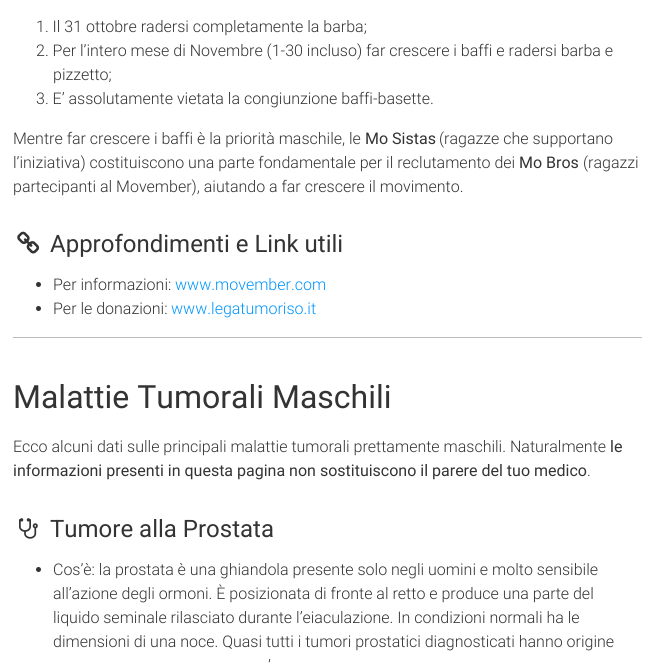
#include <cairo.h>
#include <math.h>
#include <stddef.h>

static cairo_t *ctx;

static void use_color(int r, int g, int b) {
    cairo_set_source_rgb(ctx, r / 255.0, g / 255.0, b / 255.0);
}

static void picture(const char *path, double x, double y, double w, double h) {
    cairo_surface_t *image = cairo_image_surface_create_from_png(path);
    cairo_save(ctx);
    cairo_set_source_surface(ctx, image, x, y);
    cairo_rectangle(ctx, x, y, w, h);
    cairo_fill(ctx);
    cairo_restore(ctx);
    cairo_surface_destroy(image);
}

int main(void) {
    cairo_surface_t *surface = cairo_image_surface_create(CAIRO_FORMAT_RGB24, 655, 664);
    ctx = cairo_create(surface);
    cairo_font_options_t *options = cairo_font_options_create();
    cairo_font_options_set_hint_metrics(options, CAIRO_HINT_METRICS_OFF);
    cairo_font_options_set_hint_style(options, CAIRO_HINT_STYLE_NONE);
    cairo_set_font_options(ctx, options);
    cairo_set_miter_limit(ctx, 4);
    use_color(255, 255, 255);
    cairo_paint(ctx);
    cairo_select_font_face(ctx, "Roboto Light", CAIRO_FONT_SLANT_NORMAL, CAIRO_FONT_WEIGHT_NORMAL);
    cairo_set_font_size(ctx, 16);
    use_color(51, 51, 51);
    cairo_move_to(ctx, 36, 32);
    cairo_show_text(ctx, "1. Il 31 ottobre radersi completamente la barba;");
    cairo_move_to(ctx, 36, 56);
    cairo_show_text(ctx, "2. Per l’intero mese di Novembre (1-30 incluso) far crescere i baffi e radersi barba e");
    cairo_move_to(ctx, 53, 80);
    cairo_show_text(ctx, "pizzetto;");
    cairo_move_to(ctx, 36, 104);
    cairo_show_text(ctx, "3. E’ assolutamente vietata la congiunzione baffi-basette.");
    cairo_move_to(ctx, 13, 144);
    cairo_show_text(ctx, "Mentre far crescere i baffi è la priorità maschile, le");
    cairo_select_font_face(ctx, "Roboto", CAIRO_FONT_SLANT_NORMAL, CAIRO_FONT_WEIGHT_NORMAL);
    cairo_move_to(ctx, 365, 144);
    cairo_show_text(ctx, "Mo Sistas");
    cairo_select_font_face(ctx, "Roboto Light", CAIRO_FONT_SLANT_NORMAL, CAIRO_FONT_WEIGHT_NORMAL);
    cairo_move_to(ctx, 439, 144);
    cairo_show_text(ctx, "(ragazze che supportano");
    cairo_move_to(ctx, 13, 168);
    cairo_show_text(ctx, "l’iniziativa) costituiscono una parte fondamentale per il reclutamento dei");
    cairo_select_font_face(ctx, "Roboto", CAIRO_FONT_SLANT_NORMAL, CAIRO_FONT_WEIGHT_NORMAL);
    cairo_move_to(ctx, 519, 168);
    cairo_show_text(ctx, "Mo Bros");
    cairo_select_font_face(ctx, "Roboto Light", CAIRO_FONT_SLANT_NORMAL, CAIRO_FONT_WEIGHT_NORMAL);
    cairo_move_to(ctx, 583, 168);
    cairo_show_text(ctx, "(ragazzi");
    cairo_move_to(ctx, 13, 192);
    cairo_show_text(ctx, "partecipanti al Movember), aiutando a far crescere il movimento.");
    picture("img1.png", 17, 231, 23, 23);
    cairo_select_font_face(ctx, "Roboto", CAIRO_FONT_SLANT_NORMAL, CAIRO_FONT_WEIGHT_NORMAL);
    cairo_set_font_size(ctx, 24);
    cairo_move_to(ctx, 50, 252);
    cairo_show_text(ctx, "Approfondimenti e Link utili");
    cairo_new_path(ctx);
    cairo_arc(ctx, 38.5, 284.5, 2.5, 0, 2 * M_PI);
    cairo_fill(ctx);
    cairo_select_font_face(ctx, "Roboto Light", CAIRO_FONT_SLANT_NORMAL, CAIRO_FONT_WEIGHT_NORMAL);
    cairo_set_font_size(ctx, 16);
    cairo_move_to(ctx, 53, 290);
    cairo_show_text(ctx, "Per informazioni:");
    use_color(0, 148, 255);
    cairo_move_to(ctx, 175, 290);
    cairo_show_text(ctx, "www.movember.com");
    use_color(51, 51, 51);
    cairo_new_path(ctx);
    cairo_arc(ctx, 38.5, 308.5, 2.5, 0, 2 * M_PI);
    cairo_fill(ctx);
    cairo_move_to(ctx, 53, 314);
    cairo_show_text(ctx, "Per le donazioni:");
    use_color(0, 148, 255);
    cairo_move_to(ctx, 171, 314);
    cairo_show_text(ctx, "www.legatumoriso.it");
    use_color(187, 187, 187);
    cairo_rectangle(ctx, 13, 337, 629, 1);
    cairo_fill(ctx);
    cairo_select_font_face(ctx, "Roboto", CAIRO_FONT_SLANT_NORMAL, CAIRO_FONT_WEIGHT_NORMAL);
    cairo_set_font_size(ctx, 32);
    use_color(51, 51, 51);
    cairo_move_to(ctx, 13, 408);
    cairo_show_text(ctx, "Malattie Tumorali Maschili");
    cairo_select_font_face(ctx, "Roboto Light", CAIRO_FONT_SLANT_NORMAL, CAIRO_FONT_WEIGHT_NORMAL);
    cairo_set_font_size(ctx, 16);
    cairo_move_to(ctx, 13, 452);
    cairo_show_text(ctx, "Ecco alcuni dati sulle principali malattie tumorali prettamente maschili. Naturalmente");
    cairo_select_font_face(ctx, "Roboto", CAIRO_FONT_SLANT_NORMAL, CAIRO_FONT_WEIGHT_NORMAL);
    cairo_move_to(ctx, 610, 452);
    cairo_show_text(ctx, "le");
    cairo_move_to(ctx, 13, 476);
    cairo_show_text(ctx, "informazioni presenti in questa pagina non sostituiscono il parere del tuo medico");
    cairo_select_font_face(ctx, "Roboto Light", CAIRO_FONT_SLANT_NORMAL, CAIRO_FONT_WEIGHT_NORMAL);
    cairo_move_to(ctx, 587, 476);
    cairo_show_text(ctx, ".");
    picture("img2.png", 19, 518, 19, 21);
    cairo_select_font_face(ctx, "Roboto", CAIRO_FONT_SLANT_NORMAL, CAIRO_FONT_WEIGHT_NORMAL);
    cairo_set_font_size(ctx, 24);
    cairo_move_to(ctx, 50, 537);
    cairo_show_text(ctx, "Tumore alla Prostata");
    cairo_new_path(ctx);
    cairo_arc(ctx, 38.5, 569.5, 2.5, 0, 2 * M_PI);
    cairo_fill(ctx);
    cairo_select_font_face(ctx, "Roboto Light", CAIRO_FONT_SLANT_NORMAL, CAIRO_FONT_WEIGHT_NORMAL);
    cairo_set_font_size(ctx, 16);
    cairo_move_to(ctx, 53, 575);
    cairo_show_text(ctx, "Cos’è: la prostata è una ghiandola presente solo negli uomini e molto sensibile");
    cairo_move_to(ctx, 53, 599);
    cairo_show_text(ctx, "all’azione degli ormoni. È posizionata di fronte al retto e produce una parte del");
    cairo_move_to(ctx, 53, 623);
    cairo_show_text(ctx, "liquido seminale rilasciato durante l’eiaculazione. In condizioni normali ha le");
    cairo_move_to(ctx, 53, 647);
    cairo_show_text(ctx, "dimensioni di una noce. Quasi tutti i tumori prostatici diagnosticati hanno origine");
    cairo_move_to(ctx, 268, 671);
    cairo_show_text(ctx, "’");
    cairo_surface_write_to_png(surface, "result.png");
    cairo_font_options_destroy(options);
    cairo_destroy(ctx);
    cairo_surface_destroy(surface);
    return 0;
}
